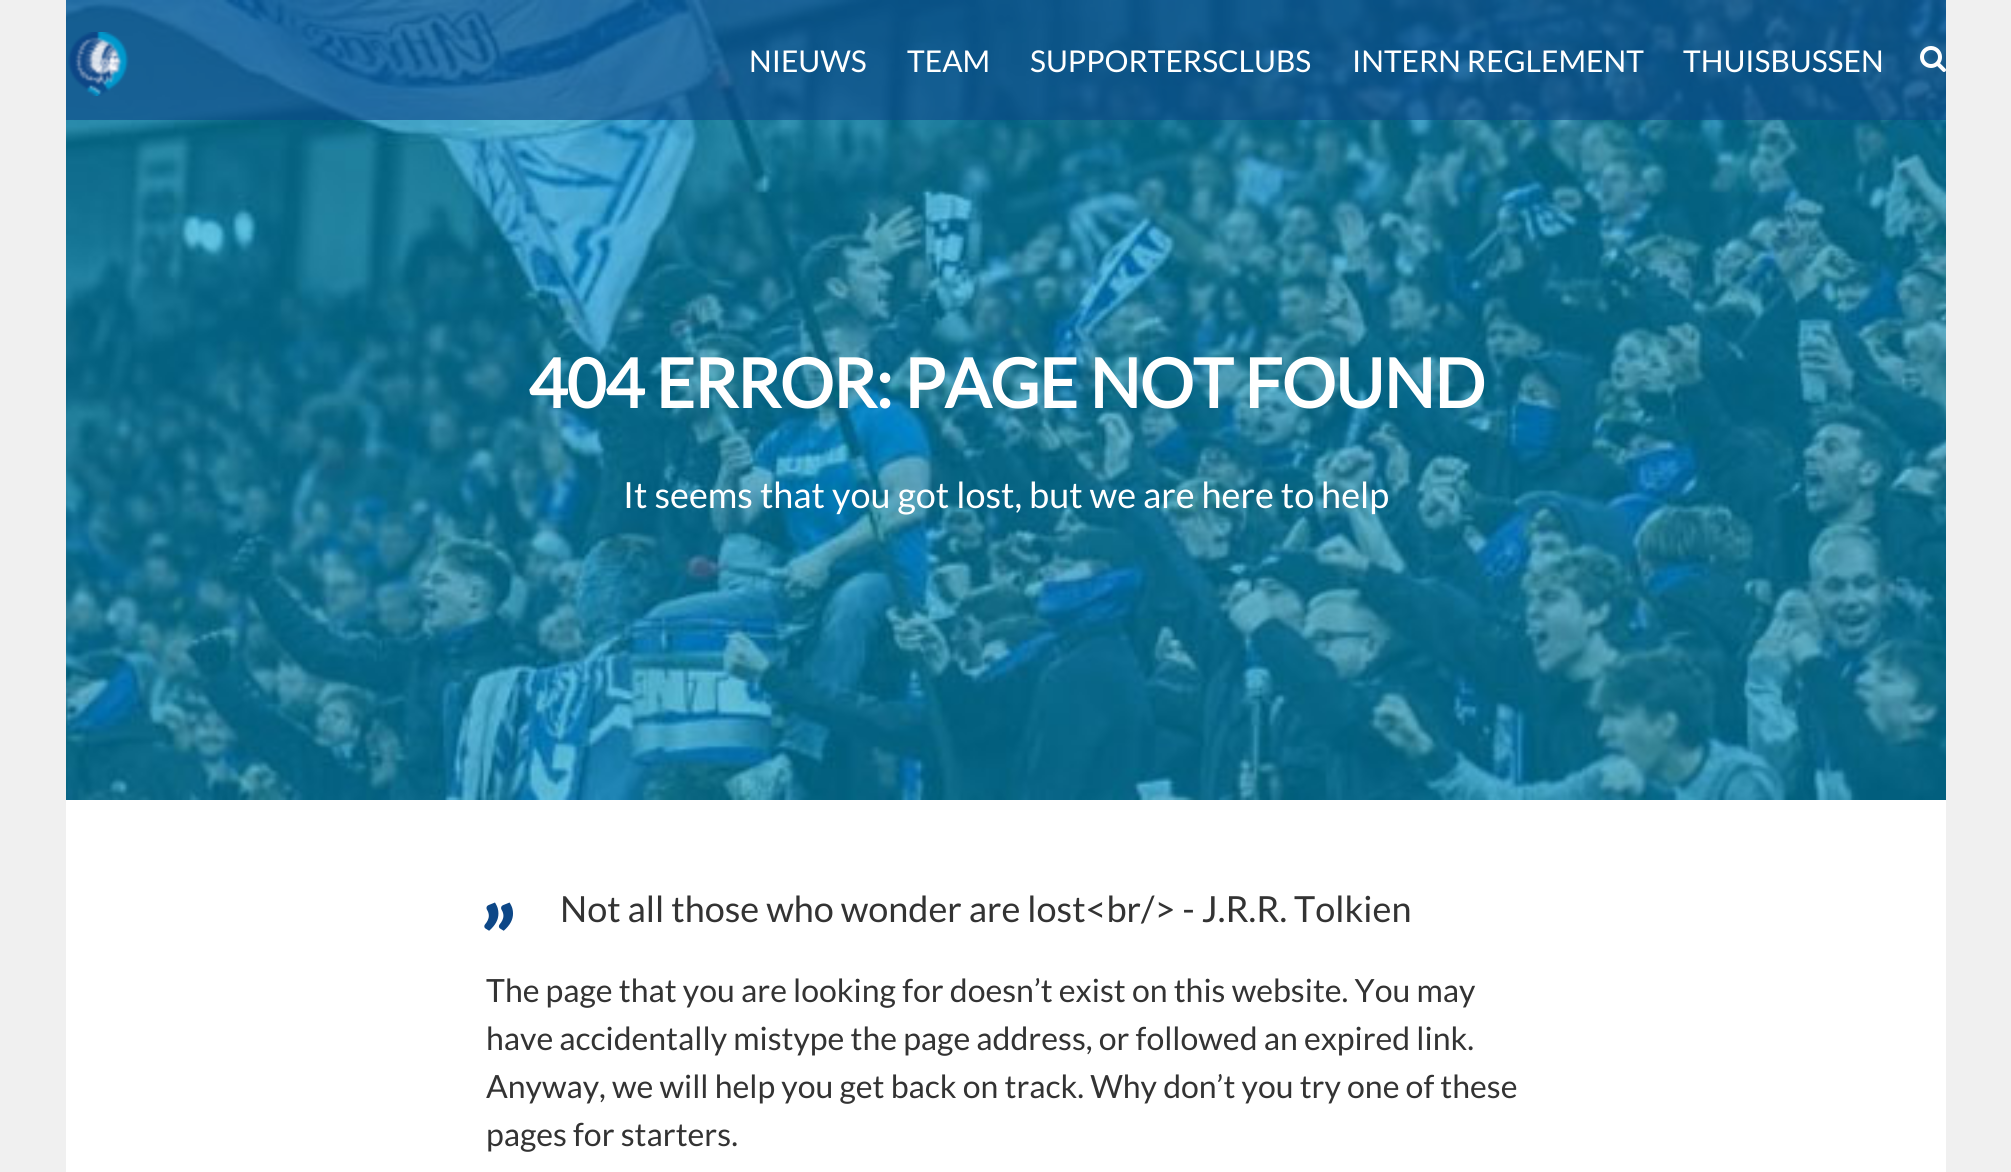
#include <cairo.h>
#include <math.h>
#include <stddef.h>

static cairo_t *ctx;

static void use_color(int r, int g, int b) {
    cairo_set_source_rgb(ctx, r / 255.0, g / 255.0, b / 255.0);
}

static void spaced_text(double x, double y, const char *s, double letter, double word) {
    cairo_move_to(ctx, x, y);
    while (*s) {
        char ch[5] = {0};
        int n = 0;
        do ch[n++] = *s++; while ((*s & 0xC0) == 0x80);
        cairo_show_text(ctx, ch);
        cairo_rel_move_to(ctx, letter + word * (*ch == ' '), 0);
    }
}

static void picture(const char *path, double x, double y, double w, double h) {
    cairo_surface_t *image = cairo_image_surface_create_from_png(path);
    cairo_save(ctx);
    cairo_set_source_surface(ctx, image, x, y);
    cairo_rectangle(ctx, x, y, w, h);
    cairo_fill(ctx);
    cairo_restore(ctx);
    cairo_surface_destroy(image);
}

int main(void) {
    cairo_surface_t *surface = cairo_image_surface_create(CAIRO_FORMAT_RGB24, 2011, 1172);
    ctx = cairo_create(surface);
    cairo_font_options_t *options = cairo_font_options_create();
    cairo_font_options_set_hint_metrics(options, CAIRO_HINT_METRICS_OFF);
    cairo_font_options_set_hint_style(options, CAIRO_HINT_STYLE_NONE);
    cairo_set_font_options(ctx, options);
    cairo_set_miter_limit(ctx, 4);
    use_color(240, 240, 240);
    cairo_paint(ctx);
    use_color(255, 255, 255);
    cairo_rectangle(ctx, 66, 800, 1880, 372);
    cairo_fill(ctx);
    picture("img3.png", 66, 0, 1880, 800);
    cairo_set_source_rgba(ctx, 0.051, 0.278, 0.529, 0.6);
    cairo_rectangle(ctx, 66, 0, 1880, 120);
    cairo_fill(ctx);
    picture("img1.png", 68, 32, 61, 64);
    cairo_select_font_face(ctx, "Lato", CAIRO_FONT_SLANT_NORMAL, CAIRO_FONT_WEIGHT_NORMAL);
    cairo_set_font_size(ctx, 30);
    use_color(255, 255, 255);
    cairo_move_to(ctx, 749, 72);
    cairo_show_text(ctx, "NIEUWS");
    cairo_move_to(ctx, 907, 72);
    cairo_show_text(ctx, "TEAM");
    cairo_move_to(ctx, 1030, 72);
    cairo_show_text(ctx, "SUPPORTERSCLUBS");
    cairo_move_to(ctx, 1352, 72);
    cairo_show_text(ctx, "INTERN REGLEMENT");
    cairo_move_to(ctx, 1683, 72);
    cairo_show_text(ctx, "THUISBUSSEN");
    picture("img2.png", 1920, 46, 26, 26);
    cairo_select_font_face(ctx, "Lato", CAIRO_FONT_SLANT_NORMAL, CAIRO_FONT_WEIGHT_BOLD);
    cairo_set_font_size(ctx, 68);
    spaced_text(528, 408, "404 ERROR: PAGE NOT FOUND", -1, 0);
    cairo_select_font_face(ctx, "Lato", CAIRO_FONT_SLANT_NORMAL, CAIRO_FONT_WEIGHT_NORMAL);
    cairo_set_font_size(ctx, 36);
    cairo_move_to(ctx, 623, 508);
    cairo_show_text(ctx, "It seems that you got lost, but we are here to help");
    cairo_select_font_face(ctx, "Lato", CAIRO_FONT_SLANT_NORMAL, CAIRO_FONT_WEIGHT_BOLD);
    cairo_set_font_size(ctx, 96);
    use_color(13, 71, 135);
    cairo_move_to(ctx, 480, 978);
    cairo_show_text(ctx, "”");
    cairo_select_font_face(ctx, "Lato", CAIRO_FONT_SLANT_NORMAL, CAIRO_FONT_WEIGHT_NORMAL);
    cairo_set_font_size(ctx, 36);
    use_color(51, 51, 51);
    cairo_move_to(ctx, 560, 922);
    cairo_show_text(ctx, "Not all those who wonder are lost<br/> - J.R.R. Tolkien");
    cairo_set_font_size(ctx, 32);
    cairo_move_to(ctx, 486, 1002);
    cairo_show_text(ctx, "The page that you are looking for doesn’t exist on this website. You may");
    cairo_move_to(ctx, 486, 1050);
    cairo_show_text(ctx, "have accidentally mistype the page address, or followed an expired link.");
    cairo_move_to(ctx, 486, 1098);
    cairo_show_text(ctx, "Anyway, we will help you get back on track. Why don’t you try one of these");
    cairo_move_to(ctx, 486, 1146);
    cairo_show_text(ctx, "pages for starters.");
    cairo_surface_write_to_png(surface, "result.png");
    cairo_font_options_destroy(options);
    cairo_destroy(ctx);
    cairo_surface_destroy(surface);
    return 0;
}
